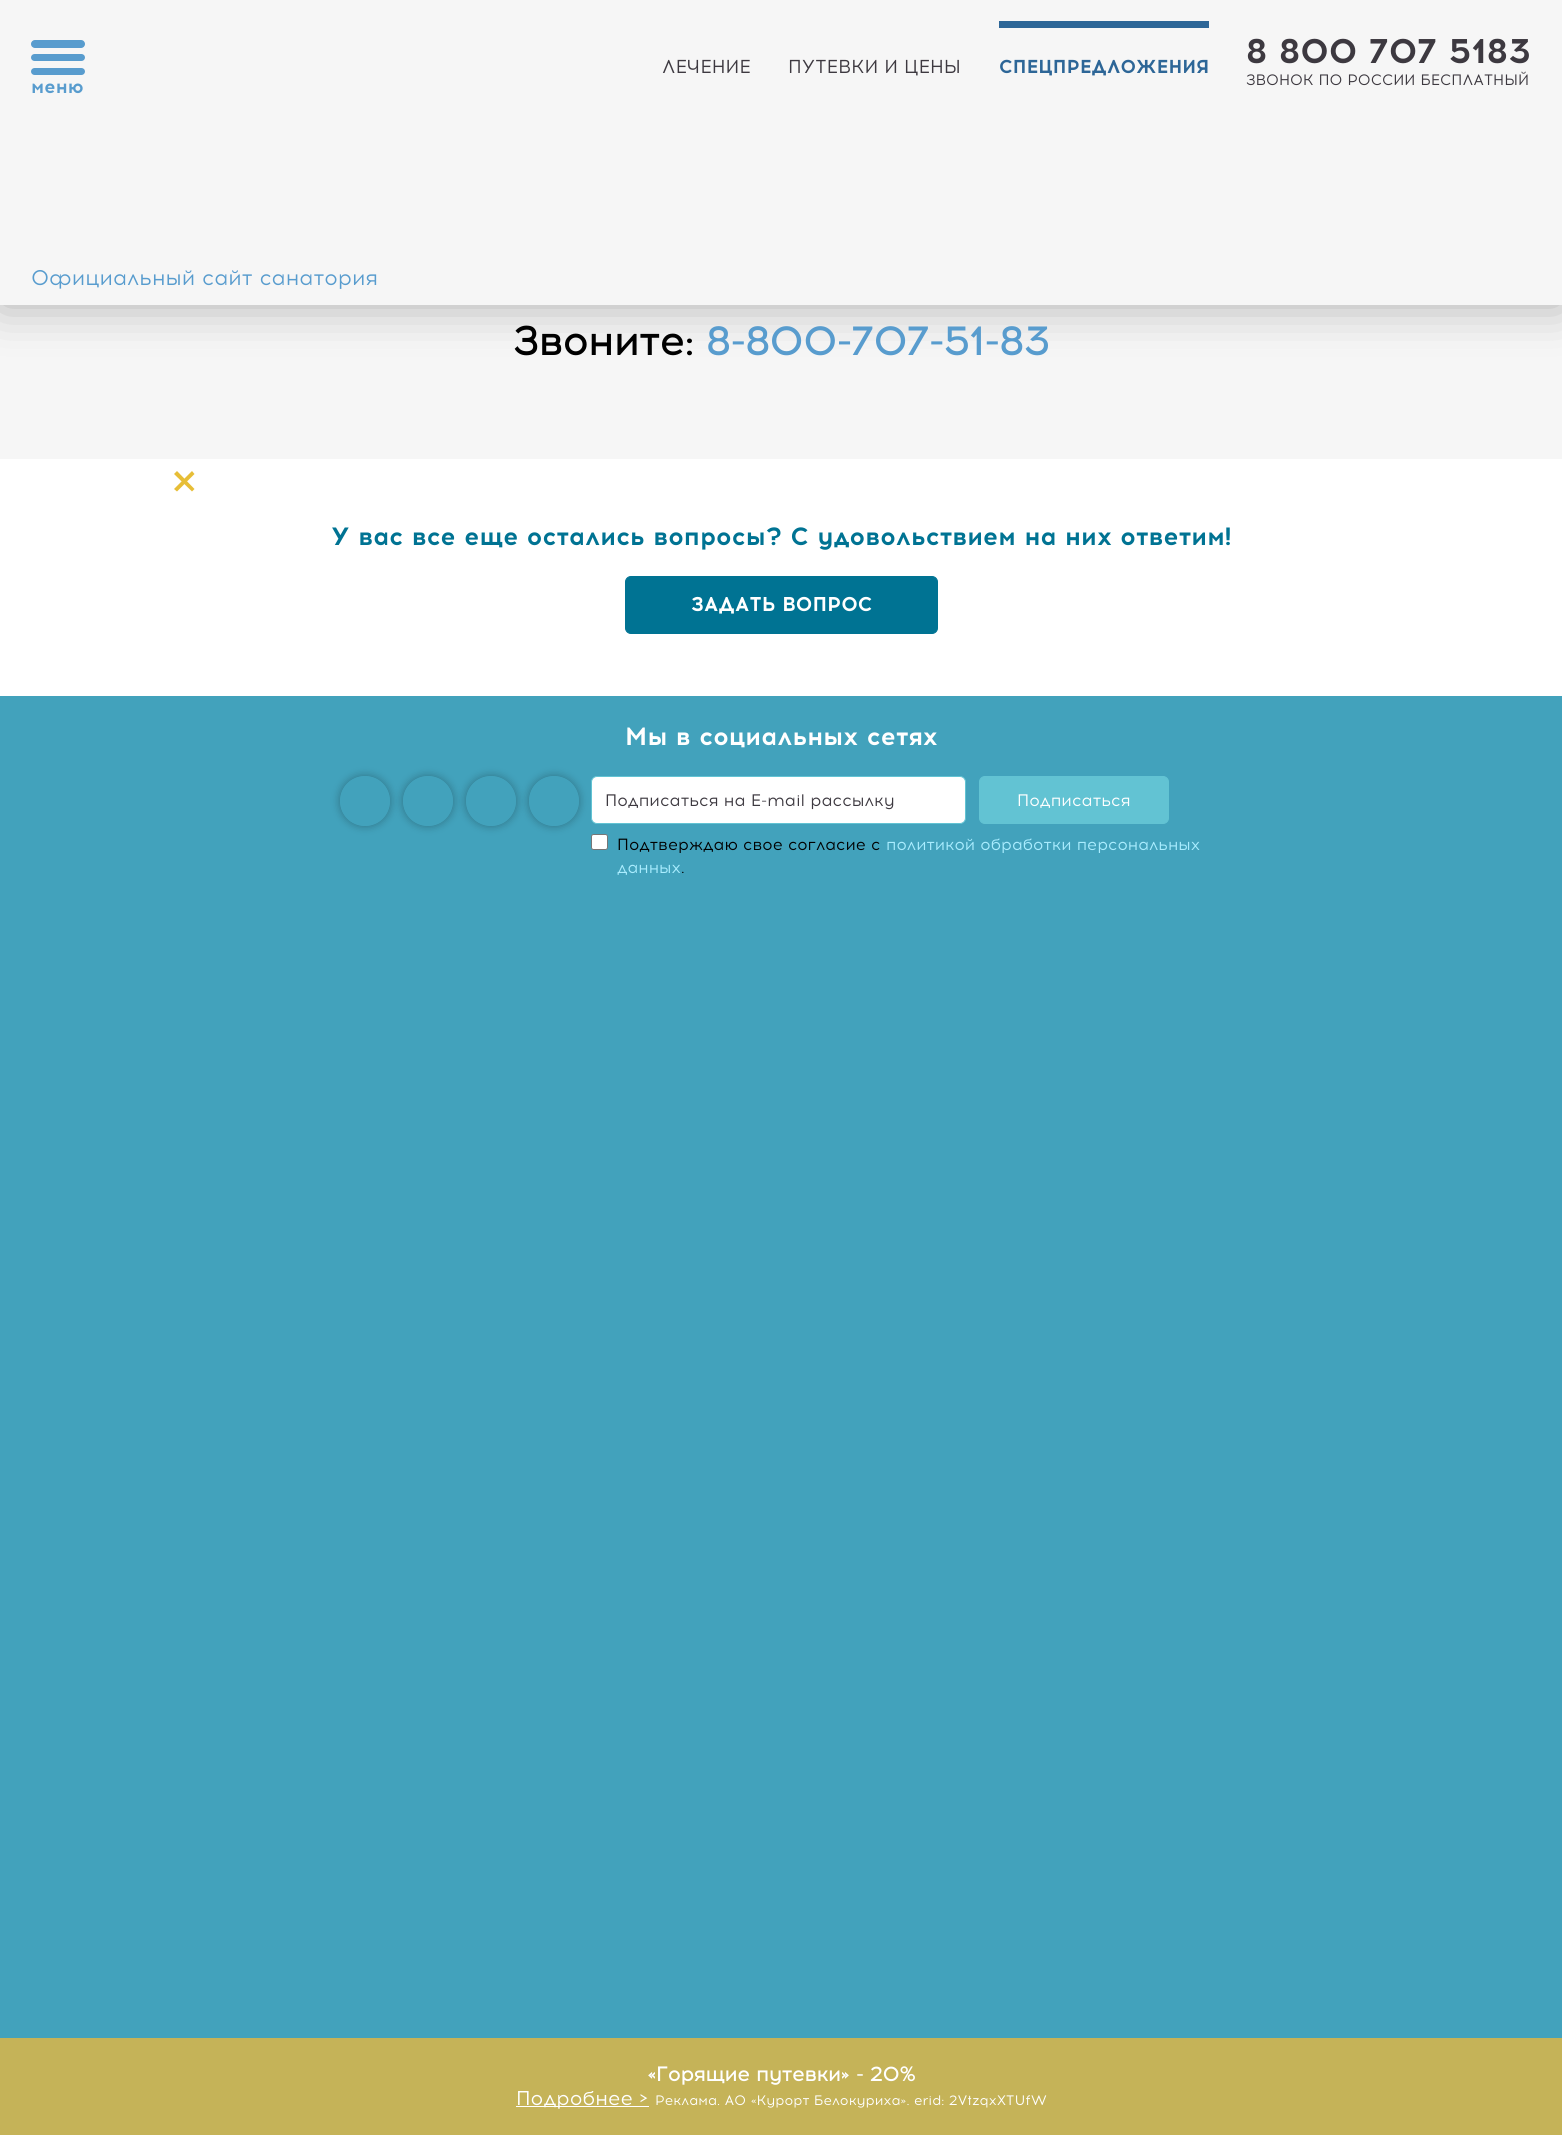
#include <cairo.h>
#include <math.h>
#include <stddef.h>

static cairo_t *ctx;

static void use_color(int r, int g, int b) {
    cairo_set_source_rgb(ctx, r / 255.0, g / 255.0, b / 255.0);
}

static void round_rect(double x, double y, double w, double h, double r) {
    cairo_new_sub_path(ctx);
    cairo_arc(ctx, x + w - r, y + h - r, r, 0, M_PI / 2);
    cairo_arc(ctx, x + r, y + h - r, r, M_PI / 2, M_PI);
    cairo_arc(ctx, x + r, y + r, r, M_PI, 1.5 * M_PI);
    cairo_arc(ctx, x + w - r, y + r, r, 1.5 * M_PI, 2 * M_PI);
    cairo_close_path(ctx);
}

static void shadow(double x, double y, double w, double h, double r, double blur, double alpha) {
    cairo_push_group_with_content(ctx, CAIRO_CONTENT_ALPHA);
    cairo_set_operator(ctx, CAIRO_OPERATOR_SOURCE);
    for (int i = 15; i >= -15 && fmin(w, h) + blur * i / 3 > 0; i -= 2) {
        double e = blur * i / 6;
        cairo_set_source_rgba(ctx, 0, 0, 0, alpha * erfc((i - 1) / 8.5) / 2);
        round_rect(x - e, y - e, w + 2 * e, h + 2 * e, fmax(0, fmin(r + e + blur * .6, fmin(w, h) / 2 + e)));
        cairo_fill(ctx);
    }
    cairo_pattern_t *soft = cairo_pop_group(ctx);
    cairo_mask(ctx, soft);
    cairo_pattern_destroy(soft);
}

int main(void) {
    cairo_surface_t *surface = cairo_image_surface_create(CAIRO_FORMAT_RGB24, 1562, 2135);
    ctx = cairo_create(surface);
    cairo_font_options_t *options = cairo_font_options_create();
    cairo_font_options_set_hint_metrics(options, CAIRO_HINT_METRICS_OFF);
    cairo_font_options_set_hint_style(options, CAIRO_HINT_STYLE_NONE);
    cairo_set_font_options(ctx, options);
    cairo_set_miter_limit(ctx, 4);
    use_color(255, 255, 255);
    cairo_paint(ctx);
    use_color(246, 246, 246);
    cairo_rectangle(ctx, 0, 305, 1562, 154);
    cairo_fill(ctx);
    use_color(0, 0, 0);
    shadow(0, 0, 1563, 305, 0, 24, 0.3);
    use_color(246, 246, 246);
    cairo_rectangle(ctx, 0, 0, 1562, 305);
    cairo_fill(ctx);
    cairo_select_font_face(ctx, "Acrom", CAIRO_FONT_SLANT_NORMAL, CAIRO_FONT_WEIGHT_NORMAL);
    cairo_set_font_size(ctx, 18.75);
    use_color(61, 57, 64);
    cairo_move_to(ctx, 662, 73);
    cairo_show_text(ctx, "ЛЕЧЕНИЕ");
    cairo_move_to(ctx, 788, 73);
    cairo_show_text(ctx, "ПУТЕВКИ И ЦЕНЫ");
    use_color(45, 102, 151);
    cairo_rectangle(ctx, 999, 21, 210, 7);
    cairo_fill(ctx);
    cairo_select_font_face(ctx, "Acrom", CAIRO_FONT_SLANT_NORMAL, CAIRO_FONT_WEIGHT_BOLD);
    cairo_move_to(ctx, 999, 73);
    cairo_show_text(ctx, "СПЕЦПРЕДЛОЖЕНИЯ");
    cairo_set_font_size(ctx, 35);
    use_color(61, 57, 64);
    cairo_move_to(ctx, 1246, 63);
    cairo_show_text(ctx, "8 800 707 5183");
    cairo_select_font_face(ctx, "Acrom", CAIRO_FONT_SLANT_NORMAL, CAIRO_FONT_WEIGHT_NORMAL);
    cairo_set_font_size(ctx, 15.1);
    cairo_move_to(ctx, 1246, 85);
    cairo_show_text(ctx, "ЗВОНОК ПО РОССИИ БЕСПЛАТНЫЙ");
    use_color(88, 156, 206);
    round_rect(31, 40, 54, 8, 4);
    cairo_fill(ctx);
    round_rect(31, 54, 54, 7, 3.5);
    cairo_fill(ctx);
    round_rect(31, 68, 54, 7, 3.5);
    cairo_fill(ctx);
    cairo_select_font_face(ctx, "Acrom", CAIRO_FONT_SLANT_NORMAL, CAIRO_FONT_WEIGHT_BOLD);
    cairo_set_font_size(ctx, 18.75);
    cairo_move_to(ctx, 31, 93);
    cairo_show_text(ctx, "меню");
    cairo_select_font_face(ctx, "Acrom", CAIRO_FONT_SLANT_NORMAL, CAIRO_FONT_WEIGHT_NORMAL);
    cairo_set_font_size(ctx, 21.25);
    cairo_move_to(ctx, 31, 285);
    cairo_show_text(ctx, "Официальный сайт санатория");
    cairo_select_font_face(ctx, "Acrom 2", CAIRO_FONT_SLANT_NORMAL, CAIRO_FONT_WEIGHT_BOLD);
    cairo_set_font_size(ctx, 40);
    use_color(0, 0, 0);
    cairo_move_to(ctx, 513, 355);
    cairo_show_text(ctx, "Звоните:");
    use_color(88, 156, 206);
    cairo_move_to(ctx, 706, 355);
    cairo_show_text(ctx, "8-800-707-51-83");
    use_color(231, 190, 55);
    cairo_new_path(ctx);
    cairo_move_to(ctx, 177, 471);
    cairo_line_to(ctx, 194.5, 489);
    cairo_line_to(ctx, 192, 491.5);
    cairo_line_to(ctx, 174, 474);
    cairo_close_path(ctx);
    cairo_fill(ctx);
    cairo_new_path(ctx);
    cairo_move_to(ctx, 174, 489);
    cairo_line_to(ctx, 192, 471);
    cairo_line_to(ctx, 194.5, 474);
    cairo_line_to(ctx, 177, 491.5);
    cairo_close_path(ctx);
    cairo_fill(ctx);
    cairo_select_font_face(ctx, "Acrom", CAIRO_FONT_SLANT_NORMAL, CAIRO_FONT_WEIGHT_BOLD);
    cairo_set_font_size(ctx, 25);
    use_color(0, 115, 147);
    cairo_move_to(ctx, 331, 545);
    cairo_show_text(ctx, "У вас все еще остались вопросы? С удовольствием на них ответим!");
    round_rect(625.5, 576.5, 312, 57, 5.5);
    cairo_fill_preserve(ctx);
    cairo_set_line_width(ctx, 1);
    cairo_stroke(ctx);
    cairo_set_font_size(ctx, 20);
    use_color(255, 255, 255);
    cairo_move_to(ctx, 691, 611);
    cairo_show_text(ctx, "ЗАДАТЬ ВОПРОС");
    use_color(66, 162, 188);
    cairo_rectangle(ctx, 0, 696, 1562, 1342);
    cairo_fill(ctx);
    cairo_set_font_size(ctx, 25);
    use_color(255, 255, 255);
    cairo_move_to(ctx, 625, 745);
    cairo_show_text(ctx, "Мы в социальных сетях");
    cairo_save(ctx);
    cairo_set_fill_rule(ctx, CAIRO_FILL_RULE_EVEN_ODD);
    cairo_new_path(ctx);
    cairo_move_to(ctx, 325, 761);
    cairo_line_to(ctx, 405, 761);
    cairo_line_to(ctx, 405, 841);
    cairo_line_to(ctx, 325, 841);
    cairo_close_path(ctx);
    cairo_move_to(ctx, 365, 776);
    cairo_curve_to(ctx, 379, 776, 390, 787, 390, 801);
    cairo_curve_to(ctx, 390, 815, 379, 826, 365, 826);
    cairo_curve_to(ctx, 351, 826, 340, 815, 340, 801);
    cairo_curve_to(ctx, 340, 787, 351, 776, 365, 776);
    cairo_close_path(ctx);
    cairo_clip(ctx);
    use_color(0, 0, 0);
    shadow(340, 776, 50, 50, 25, 4.5, 0.3);
    cairo_restore(ctx);
    cairo_save(ctx);
    cairo_set_fill_rule(ctx, CAIRO_FILL_RULE_EVEN_ODD);
    cairo_new_path(ctx);
    cairo_move_to(ctx, 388, 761);
    cairo_line_to(ctx, 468, 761);
    cairo_line_to(ctx, 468, 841);
    cairo_line_to(ctx, 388, 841);
    cairo_close_path(ctx);
    cairo_move_to(ctx, 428, 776);
    cairo_curve_to(ctx, 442, 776, 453, 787, 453, 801);
    cairo_curve_to(ctx, 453, 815, 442, 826, 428, 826);
    cairo_curve_to(ctx, 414, 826, 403, 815, 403, 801);
    cairo_curve_to(ctx, 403, 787, 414, 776, 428, 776);
    cairo_close_path(ctx);
    cairo_clip(ctx);
    use_color(0, 0, 0);
    shadow(403, 776, 50, 50, 25, 4.5, 0.3);
    cairo_restore(ctx);
    cairo_save(ctx);
    cairo_set_fill_rule(ctx, CAIRO_FILL_RULE_EVEN_ODD);
    cairo_new_path(ctx);
    cairo_move_to(ctx, 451, 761);
    cairo_line_to(ctx, 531, 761);
    cairo_line_to(ctx, 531, 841);
    cairo_line_to(ctx, 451, 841);
    cairo_close_path(ctx);
    cairo_move_to(ctx, 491, 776);
    cairo_curve_to(ctx, 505, 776, 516, 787, 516, 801);
    cairo_curve_to(ctx, 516, 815, 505, 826, 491, 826);
    cairo_curve_to(ctx, 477, 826, 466, 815, 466, 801);
    cairo_curve_to(ctx, 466, 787, 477, 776, 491, 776);
    cairo_close_path(ctx);
    cairo_clip(ctx);
    use_color(0, 0, 0);
    shadow(466, 776, 50, 50, 25, 4.5, 0.3);
    cairo_restore(ctx);
    cairo_save(ctx);
    cairo_set_fill_rule(ctx, CAIRO_FILL_RULE_EVEN_ODD);
    cairo_new_path(ctx);
    cairo_move_to(ctx, 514, 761);
    cairo_line_to(ctx, 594, 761);
    cairo_line_to(ctx, 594, 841);
    cairo_line_to(ctx, 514, 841);
    cairo_close_path(ctx);
    cairo_move_to(ctx, 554, 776);
    cairo_curve_to(ctx, 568, 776, 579, 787, 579, 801);
    cairo_curve_to(ctx, 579, 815, 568, 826, 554, 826);
    cairo_curve_to(ctx, 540, 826, 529, 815, 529, 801);
    cairo_curve_to(ctx, 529, 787, 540, 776, 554, 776);
    cairo_close_path(ctx);
    cairo_clip(ctx);
    use_color(0, 0, 0);
    shadow(529, 776, 50, 50, 25, 4.5, 0.3);
    cairo_restore(ctx);
    round_rect(591.5, 776.5, 374, 47, 5.5);
    cairo_fill_preserve(ctx);
    use_color(98, 195, 211);
    cairo_stroke(ctx);
    cairo_select_font_face(ctx, "Acrom", CAIRO_FONT_SLANT_NORMAL, CAIRO_FONT_WEIGHT_NORMAL);
    cairo_set_font_size(ctx, 16.7);
    use_color(61, 57, 64);
    cairo_move_to(ctx, 605, 806);
    cairo_show_text(ctx, "Подписаться на E-mail рассылку");
    use_color(98, 195, 211);
    round_rect(979.5, 776.5, 189, 47, 5.5);
    cairo_fill_preserve(ctx);
    cairo_stroke(ctx);
    use_color(255, 255, 255);
    cairo_move_to(ctx, 1017, 806);
    cairo_show_text(ctx, "Подписаться");
    round_rect(591.5, 834.5, 16, 15, 2);
    cairo_fill_preserve(ctx);
    use_color(118, 118, 118);
    cairo_stroke(ctx);
    cairo_set_font_size(ctx, 16.25);
    use_color(0, 0, 0);
    cairo_move_to(ctx, 617, 850);
    cairo_show_text(ctx, "Подтверждаю свое согласие с");
    use_color(170, 237, 255);
    cairo_move_to(ctx, 886, 850);
    cairo_show_text(ctx, "политикой обработки персональных");
    cairo_move_to(ctx, 617, 873);
    cairo_show_text(ctx, "данных");
    use_color(0, 0, 0);
    cairo_move_to(ctx, 681, 873);
    cairo_show_text(ctx, ".");
    use_color(197, 179, 88);
    cairo_rectangle(ctx, 0, 2038, 1562, 97);
    cairo_fill(ctx);
    cairo_select_font_face(ctx, "Acrom 2", CAIRO_FONT_SLANT_NORMAL, CAIRO_FONT_WEIGHT_BOLD);
    cairo_set_font_size(ctx, 20);
    use_color(255, 255, 255);
    cairo_move_to(ctx, 647, 2081);
    cairo_show_text(ctx, "«Горящие путевки» - 20%");
    cairo_rectangle(ctx, 516, 2106, 133, 1);
    cairo_fill(ctx);
    cairo_select_font_face(ctx, "Acrom", CAIRO_FONT_SLANT_NORMAL, CAIRO_FONT_WEIGHT_NORMAL);
    cairo_move_to(ctx, 516, 2105);
    cairo_show_text(ctx, "Подробнее >");
    cairo_set_font_size(ctx, 13.75);
    cairo_move_to(ctx, 655, 2105);
    cairo_show_text(ctx, "Реклама. АО «Курорт Белокуриха». erid: 2VtzqxXTUfW");
    cairo_surface_write_to_png(surface, "result.png");
    cairo_font_options_destroy(options);
    cairo_destroy(ctx);
    cairo_surface_destroy(surface);
    return 0;
}
